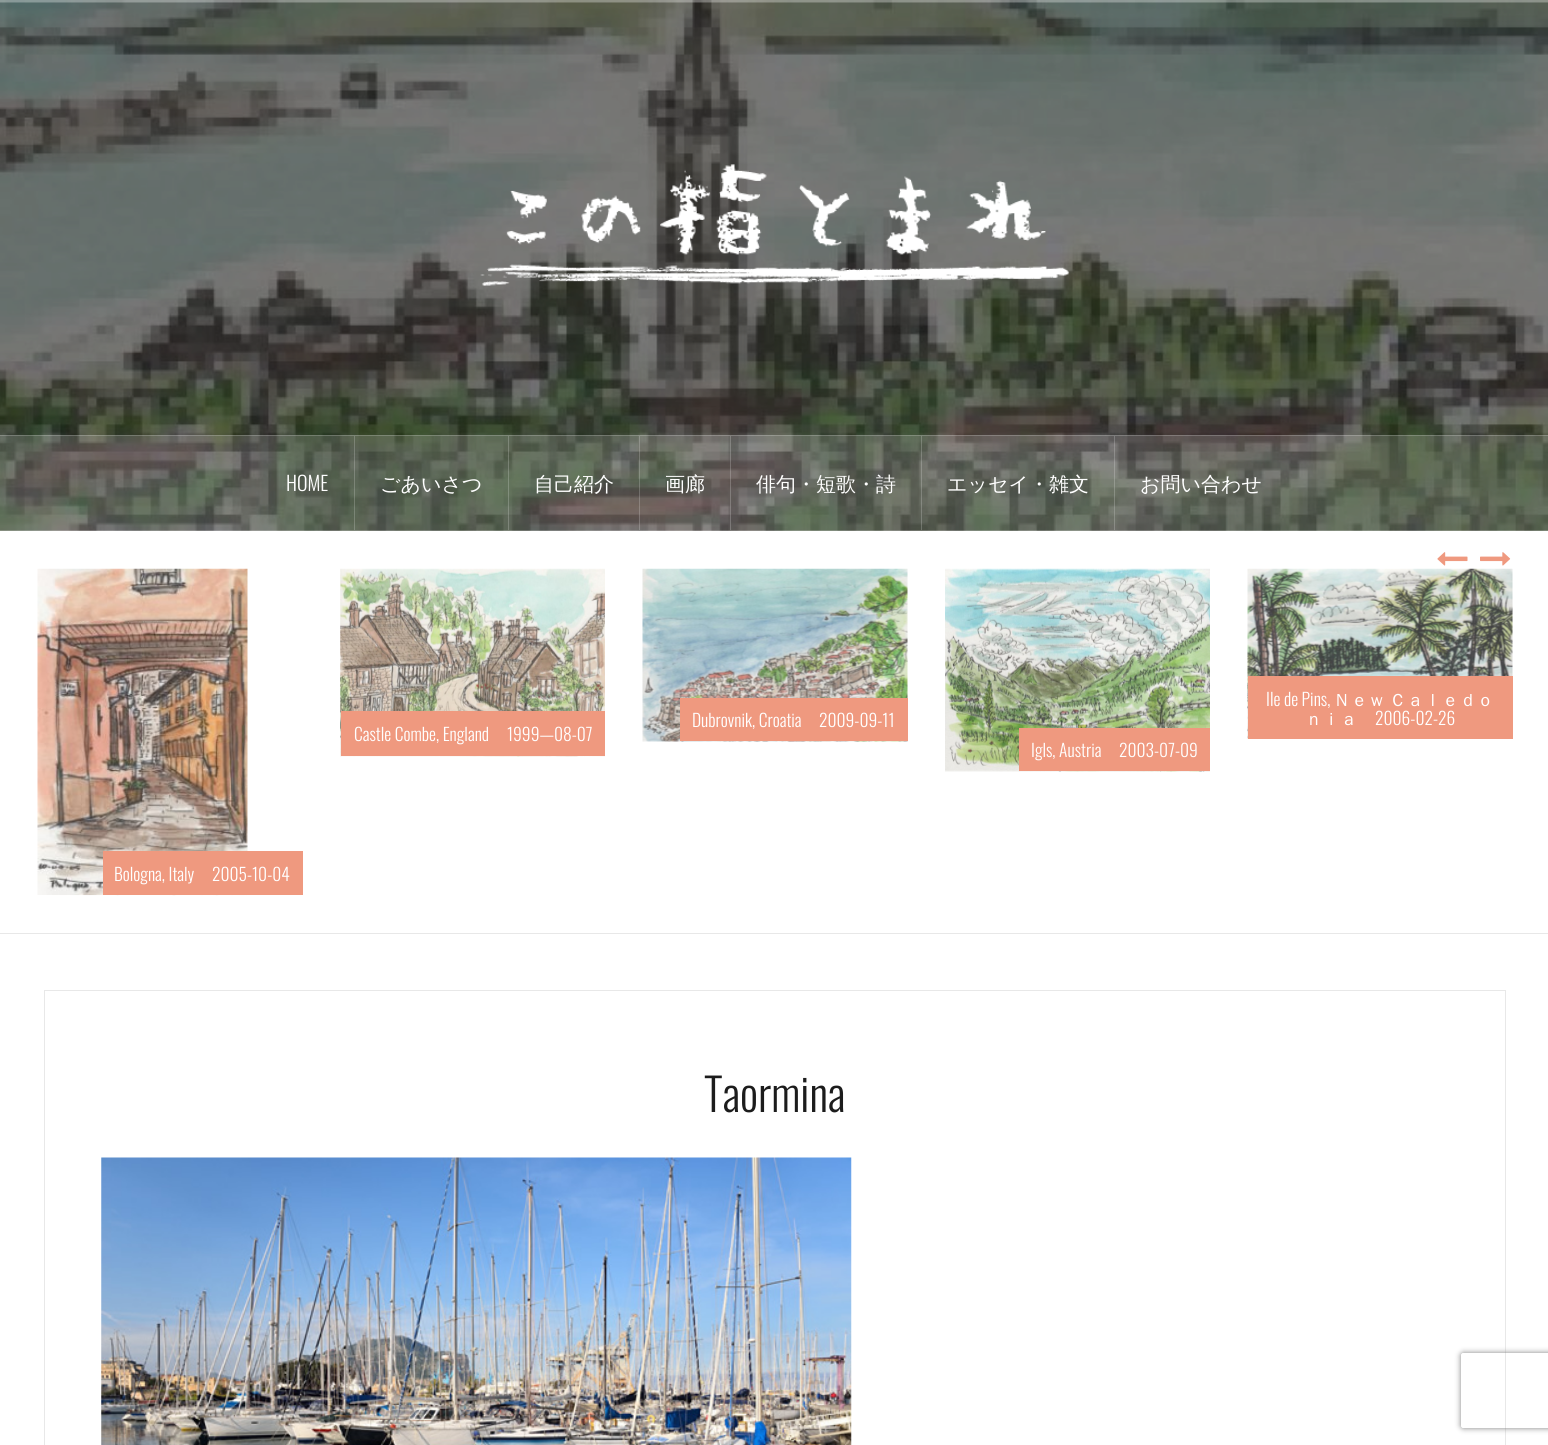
#include <cairo.h>
#include <math.h>
#include <stddef.h>

static cairo_t *ctx;

static void use_color(int r, int g, int b) {
    cairo_set_source_rgb(ctx, r / 255.0, g / 255.0, b / 255.0);
}

static void round_rect(double x, double y, double w, double h, double r) {
    cairo_new_sub_path(ctx);
    cairo_arc(ctx, x + w - r, y + h - r, r, 0, M_PI / 2);
    cairo_arc(ctx, x + r, y + h - r, r, M_PI / 2, M_PI);
    cairo_arc(ctx, x + r, y + r, r, M_PI, 1.5 * M_PI);
    cairo_arc(ctx, x + w - r, y + r, r, 1.5 * M_PI, 2 * M_PI);
    cairo_close_path(ctx);
}

static void shadow(double x, double y, double w, double h, double r, double blur, double alpha) {
    cairo_push_group_with_content(ctx, CAIRO_CONTENT_ALPHA);
    cairo_set_operator(ctx, CAIRO_OPERATOR_SOURCE);
    for (int i = 15; i >= -15 && fmin(w, h) + blur * i / 3 > 0; i -= 2) {
        double e = blur * i / 6;
        cairo_set_source_rgba(ctx, 0, 0, 0, alpha * erfc((i - 1) / 8.5) / 2);
        round_rect(x - e, y - e, w + 2 * e, h + 2 * e, fmax(0, fmin(r + e + blur * .6, fmin(w, h) / 2 + e)));
        cairo_fill(ctx);
    }
    cairo_pattern_t *soft = cairo_pop_group(ctx);
    cairo_mask(ctx, soft);
    cairo_pattern_destroy(soft);
}

static void picture(const char *path, double x, double y, double w, double h) {
    cairo_surface_t *image = cairo_image_surface_create_from_png(path);
    cairo_save(ctx);
    cairo_set_source_surface(ctx, image, x, y);
    cairo_rectangle(ctx, x, y, w, h);
    cairo_fill(ctx);
    cairo_restore(ctx);
    cairo_surface_destroy(image);
}

int main(void) {
    cairo_surface_t *surface = cairo_image_surface_create(CAIRO_FORMAT_RGB24, 1548, 1445);
    ctx = cairo_create(surface);
    cairo_font_options_t *options = cairo_font_options_create();
    cairo_font_options_set_hint_metrics(options, CAIRO_HINT_METRICS_OFF);
    cairo_font_options_set_hint_style(options, CAIRO_HINT_STYLE_NONE);
    cairo_set_font_options(ctx, options);
    cairo_set_miter_limit(ctx, 4);
    use_color(255, 255, 255);
    cairo_paint(ctx);
    picture("img1.png", 0, 0, 1548, 531);
    cairo_set_source_rgba(ctx, 1, 1, 1, 0.15);
    cairo_rectangle(ctx, 0, 0, 1548, 3);
    cairo_fill(ctx);
    cairo_set_source_rgba(ctx, 1, 1, 1, 0.2);
    cairo_rectangle(ctx, 0, 0, 1548, 1);
    cairo_fill(ctx);
    cairo_rectangle(ctx, 0, 1, 1548, 1);
    cairo_fill(ctx);
    picture("img2.png", 480, 164, 590, 122);
    cairo_set_source_rgba(ctx, 1, 1, 1, 0.15);
    cairo_rectangle(ctx, 0, 435, 1548, 96);
    cairo_fill(ctx);
    cairo_set_source_rgba(ctx, 1, 1, 1, 0.2);
    cairo_rectangle(ctx, 0, 435, 1548, 1);
    cairo_fill(ctx);
    cairo_rectangle(ctx, 0, 530, 1548, 1);
    cairo_fill(ctx);
    cairo_rectangle(ctx, 354, 436, 1, 94);
    cairo_fill(ctx);
    cairo_select_font_face(ctx, "Oswald Light", CAIRO_FONT_SLANT_NORMAL, CAIRO_FONT_WEIGHT_NORMAL);
    cairo_set_font_size(ctx, 20);
    use_color(255, 255, 255);
    cairo_move_to(ctx, 286, 491);
    cairo_show_text(ctx, "HOME");
    cairo_set_source_rgba(ctx, 1, 1, 1, 0.2);
    cairo_rectangle(ctx, 508, 436, 1, 94);
    cairo_fill(ctx);
    cairo_select_font_face(ctx, "WenQuanYi Zen Hei Medium", CAIRO_FONT_SLANT_NORMAL, CAIRO_FONT_WEIGHT_NORMAL);
    use_color(255, 255, 255);
    cairo_move_to(ctx, 380, 491);
    cairo_show_text(ctx, "ごあいさつ");
    cairo_set_source_rgba(ctx, 1, 1, 1, 0.2);
    cairo_rectangle(ctx, 639, 436, 1, 94);
    cairo_fill(ctx);
    use_color(255, 255, 255);
    cairo_move_to(ctx, 534, 491);
    cairo_show_text(ctx, "自己紹介");
    cairo_set_source_rgba(ctx, 1, 1, 1, 0.2);
    cairo_rectangle(ctx, 730, 436, 1, 94);
    cairo_fill(ctx);
    use_color(255, 255, 255);
    cairo_move_to(ctx, 665, 491);
    cairo_show_text(ctx, "画廊");
    cairo_set_source_rgba(ctx, 1, 1, 1, 0.2);
    cairo_rectangle(ctx, 921, 436, 1, 94);
    cairo_fill(ctx);
    use_color(255, 255, 255);
    cairo_move_to(ctx, 756, 491);
    cairo_show_text(ctx, "俳句・短歌・詩");
    cairo_set_source_rgba(ctx, 1, 1, 1, 0.2);
    cairo_rectangle(ctx, 1114, 436, 1, 94);
    cairo_fill(ctx);
    use_color(255, 255, 255);
    cairo_move_to(ctx, 947, 491);
    cairo_show_text(ctx, "エッセイ・雑文");
    cairo_move_to(ctx, 1140, 491);
    cairo_show_text(ctx, "お問い合わせ");
    use_color(232, 232, 232);
    cairo_rectangle(ctx, 0, 933, 1548, 1);
    cairo_fill(ctx);
    picture("img3.png", 1437, 552, 31, 14);
    picture("img4.png", 1480, 552, 31, 14);
    picture("img5.png", 642, 568, 266, 174);
    use_color(239, 153, 127);
    cairo_rectangle(ctx, 680, 698, 228, 43);
    cairo_fill(ctx);
    cairo_select_font_face(ctx, "Oswald Light", CAIRO_FONT_SLANT_NORMAL, CAIRO_FONT_WEIGHT_NORMAL);
    cairo_set_font_size(ctx, 17.5);
    use_color(255, 255, 255);
    cairo_move_to(ctx, 692, 727);
    cairo_show_text(ctx, "Dubrovnik, Croatia");
    cairo_move_to(ctx, 819, 727);
    cairo_show_text(ctx, "2009-09-11");
    picture("img6.png", 1247, 568, 266, 171);
    use_color(239, 153, 127);
    cairo_rectangle(ctx, 1248, 676, 265, 63);
    cairo_fill(ctx);
    use_color(255, 255, 255);
    cairo_move_to(ctx, 1266, 706);
    cairo_show_text(ctx, "Ile de Pins,");
    cairo_select_font_face(ctx, "WenQuanYi Zen Hei Medium", CAIRO_FONT_SLANT_NORMAL, CAIRO_FONT_WEIGHT_NORMAL);
    cairo_move_to(ctx, 1333, 706);
    cairo_show_text(ctx, "Ｎｅｗ");
    cairo_move_to(ctx, 1389, 706);
    cairo_show_text(ctx, "Ｃａｌｅｄｏ");
    cairo_move_to(ctx, 1305, 725);
    cairo_show_text(ctx, "ｎｉａ");
    cairo_select_font_face(ctx, "Oswald Light", CAIRO_FONT_SLANT_NORMAL, CAIRO_FONT_WEIGHT_NORMAL);
    cairo_move_to(ctx, 1375, 725);
    cairo_show_text(ctx, "2006-02-26");
    picture("img7.png", 340, 568, 265, 189);
    use_color(239, 153, 127);
    cairo_rectangle(ctx, 341, 711, 264, 45);
    cairo_fill(ctx);
    use_color(255, 255, 255);
    cairo_move_to(ctx, 354, 741);
    cairo_show_text(ctx, "Castle Combe, England");
    cairo_move_to(ctx, 507, 741);
    cairo_show_text(ctx, "1999—08-07");
    picture("img8.png", 945, 568, 265, 204);
    use_color(239, 153, 127);
    cairo_rectangle(ctx, 1019, 728, 191, 43);
    cairo_fill(ctx);
    use_color(255, 255, 255);
    cairo_move_to(ctx, 1031, 757);
    cairo_show_text(ctx, "Igls, Austria");
    cairo_move_to(ctx, 1119, 757);
    cairo_show_text(ctx, "2003-07-09");
    picture("img9.png", 37, 568, 211, 328);
    use_color(239, 153, 127);
    cairo_rectangle(ctx, 103, 851, 200, 44);
    cairo_fill(ctx);
    use_color(255, 255, 255);
    cairo_move_to(ctx, 114, 881);
    cairo_show_text(ctx, "Bologna, Italy");
    cairo_move_to(ctx, 212, 881);
    cairo_show_text(ctx, "2005-10-04");
    cairo_rectangle(ctx, 44.5, 990.5, 1461, 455);
    use_color(232, 232, 232);
    cairo_set_line_width(ctx, 1);
    cairo_stroke(ctx);
    cairo_set_font_size(ctx, 45);
    use_color(28, 28, 28);
    cairo_move_to(ctx, 704, 1112);
    cairo_show_text(ctx, "Taormina");
    picture("img10.png", 101, 1157, 751, 288);
    cairo_save(ctx);
    cairo_set_fill_rule(ctx, CAIRO_FILL_RULE_EVEN_ODD);
    cairo_new_path(ctx);
    cairo_move_to(ctx, 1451, 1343);
    cairo_line_to(ctx, 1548, 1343);
    cairo_line_to(ctx, 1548, 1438);
    cairo_line_to(ctx, 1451, 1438);
    cairo_close_path(ctx);
    cairo_move_to(ctx, 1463.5, 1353);
    cairo_line_to(ctx, 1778.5, 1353);
    cairo_curve_to(ctx, 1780, 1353, 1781, 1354, 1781, 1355.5);
    cairo_line_to(ctx, 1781, 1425.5);
    cairo_curve_to(ctx, 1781, 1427, 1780, 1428, 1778.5, 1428);
    cairo_line_to(ctx, 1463.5, 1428);
    cairo_curve_to(ctx, 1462, 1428, 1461, 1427, 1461, 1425.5);
    cairo_line_to(ctx, 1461, 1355.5);
    cairo_curve_to(ctx, 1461, 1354, 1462, 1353, 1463.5, 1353);
    cairo_close_path(ctx);
    cairo_clip(ctx);
    use_color(128, 128, 128);
    shadow(1461, 1353, 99, 75, 2.5, 3, 1);
    cairo_restore(ctx);
    cairo_surface_write_to_png(surface, "result.png");
    cairo_font_options_destroy(options);
    cairo_destroy(ctx);
    cairo_surface_destroy(surface);
    return 0;
}
